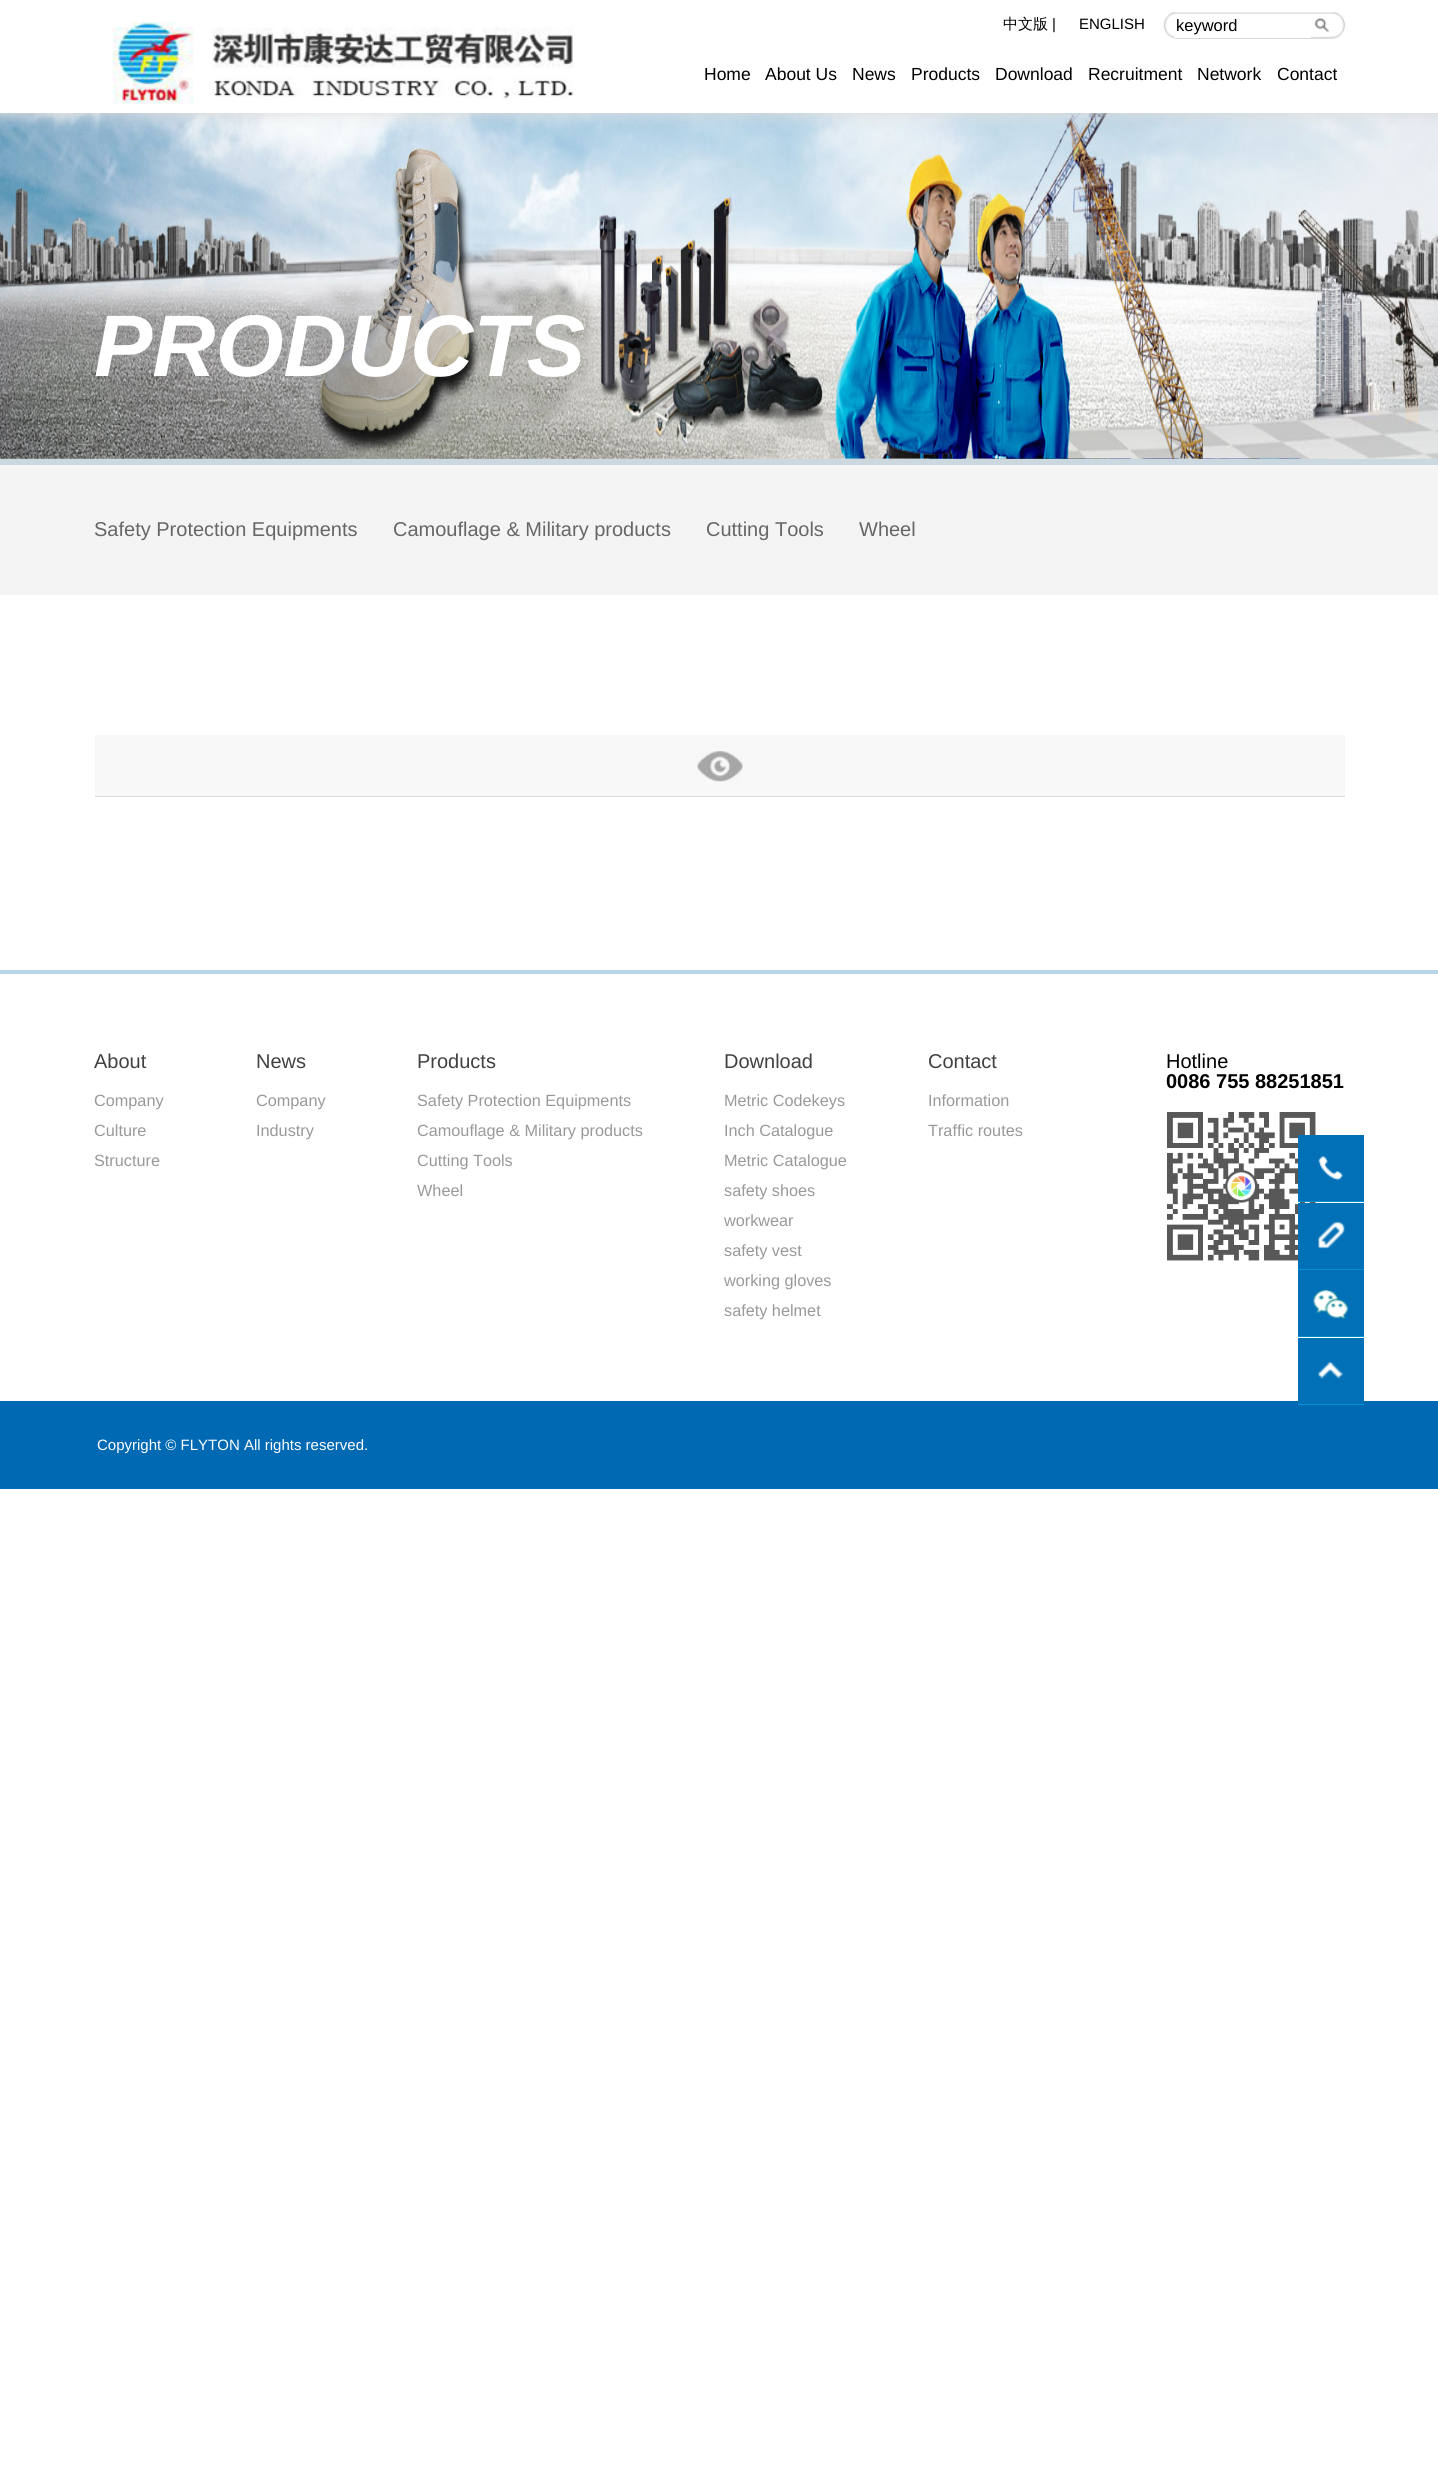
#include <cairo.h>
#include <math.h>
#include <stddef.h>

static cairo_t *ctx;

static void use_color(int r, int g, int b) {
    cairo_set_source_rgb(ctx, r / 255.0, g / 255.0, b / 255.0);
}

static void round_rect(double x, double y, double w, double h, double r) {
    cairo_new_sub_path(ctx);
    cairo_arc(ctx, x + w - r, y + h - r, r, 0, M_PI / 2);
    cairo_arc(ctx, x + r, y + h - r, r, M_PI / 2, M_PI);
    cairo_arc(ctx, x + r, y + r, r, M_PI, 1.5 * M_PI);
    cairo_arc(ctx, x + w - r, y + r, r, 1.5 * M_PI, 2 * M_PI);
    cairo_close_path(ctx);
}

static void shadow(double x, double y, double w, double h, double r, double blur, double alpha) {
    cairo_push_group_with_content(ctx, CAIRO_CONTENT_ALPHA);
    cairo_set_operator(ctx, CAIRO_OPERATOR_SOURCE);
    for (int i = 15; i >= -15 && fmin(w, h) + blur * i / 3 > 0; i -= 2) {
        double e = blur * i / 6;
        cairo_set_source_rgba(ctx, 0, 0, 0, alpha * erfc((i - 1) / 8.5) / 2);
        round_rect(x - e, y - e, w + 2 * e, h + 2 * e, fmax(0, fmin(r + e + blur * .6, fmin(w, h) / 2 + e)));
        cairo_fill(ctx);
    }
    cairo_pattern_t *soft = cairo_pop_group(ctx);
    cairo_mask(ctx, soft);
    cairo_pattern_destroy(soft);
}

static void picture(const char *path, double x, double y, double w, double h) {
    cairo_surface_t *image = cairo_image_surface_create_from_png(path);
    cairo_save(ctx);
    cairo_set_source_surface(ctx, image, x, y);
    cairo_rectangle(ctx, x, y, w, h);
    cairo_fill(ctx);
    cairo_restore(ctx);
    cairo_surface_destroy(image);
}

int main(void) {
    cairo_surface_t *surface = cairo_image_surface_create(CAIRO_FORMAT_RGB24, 1438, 2472);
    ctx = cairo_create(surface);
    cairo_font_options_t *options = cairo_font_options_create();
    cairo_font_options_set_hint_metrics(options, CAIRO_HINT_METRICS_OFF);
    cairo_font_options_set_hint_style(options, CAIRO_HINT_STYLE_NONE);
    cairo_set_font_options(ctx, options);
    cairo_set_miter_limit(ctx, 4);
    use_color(255, 255, 255);
    cairo_paint(ctx);
    picture("img3.png", 0, 458, 1438, 1);
    picture("img4.png", 0, 113, 1438, 346);
    cairo_save(ctx);
    cairo_set_fill_rule(ctx, CAIRO_FILL_RULE_EVEN_ODD);
    cairo_new_path(ctx);
    cairo_move_to(ctx, 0, 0);
    cairo_line_to(ctx, 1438, 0);
    cairo_line_to(ctx, 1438, 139);
    cairo_line_to(ctx, 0, 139);
    cairo_close_path(ctx);
    cairo_move_to(ctx, 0, 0);
    cairo_line_to(ctx, 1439, 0);
    cairo_line_to(ctx, 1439, 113);
    cairo_line_to(ctx, 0, 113);
    cairo_close_path(ctx);
    cairo_clip(ctx);
    use_color(222, 222, 222);
    shadow(0, 3, 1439, 112, 0, 7.5, 1);
    cairo_restore(ctx);
    picture("img1.png", 112, 22, 462, 82);
    cairo_select_font_face(ctx, "WenQuanYi Zen Hei Medium", CAIRO_FONT_SLANT_NORMAL, CAIRO_FONT_WEIGHT_NORMAL);
    cairo_set_font_size(ctx, 15);
    use_color(0, 0, 0);
    cairo_move_to(ctx, 1003, 29);
    cairo_show_text(ctx, "中文版");
    cairo_select_font_face(ctx, "Liberation Sans", CAIRO_FONT_SLANT_NORMAL, CAIRO_FONT_WEIGHT_NORMAL);
    cairo_move_to(ctx, 1052, 29);
    cairo_show_text(ctx, "|");
    cairo_move_to(ctx, 1079, 29);
    cairo_show_text(ctx, "ENGLISH");
    picture("img2.png", 1163, 12, 182, 27);
    use_color(255, 255, 255);
    cairo_rectangle(ctx, 1174, 36, 137, 2);
    cairo_fill(ctx);
    cairo_set_font_size(ctx, 16.5);
    use_color(0, 0, 0);
    cairo_move_to(ctx, 1176, 31);
    cairo_show_text(ctx, "keyword");
    cairo_set_font_size(ctx, 17.5);
    cairo_move_to(ctx, 704, 80);
    cairo_show_text(ctx, "Home");
    cairo_move_to(ctx, 765, 80);
    cairo_show_text(ctx, "About Us");
    cairo_move_to(ctx, 852, 80);
    cairo_show_text(ctx, "News");
    cairo_move_to(ctx, 911, 80);
    cairo_show_text(ctx, "Products");
    cairo_move_to(ctx, 995, 80);
    cairo_show_text(ctx, "Download");
    cairo_move_to(ctx, 1088, 80);
    cairo_show_text(ctx, "Recruitment");
    cairo_move_to(ctx, 1197, 80);
    cairo_show_text(ctx, "Network");
    cairo_move_to(ctx, 1277, 80);
    cairo_show_text(ctx, "Contact");
    cairo_select_font_face(ctx, "Liberation Sans", CAIRO_FONT_SLANT_ITALIC, CAIRO_FONT_WEIGHT_BOLD);
    cairo_set_font_size(ctx, 87.5);
    use_color(255, 255, 255);
    cairo_move_to(ctx, 94, 376);
    cairo_show_text(ctx, "PRODUCTS");
    use_color(204, 216, 223);
    cairo_rectangle(ctx, 0, 459, 1438, 6);
    cairo_fill(ctx);
    use_color(244, 244, 244);
    cairo_rectangle(ctx, 0, 465, 1438, 130);
    cairo_fill(ctx);
    cairo_select_font_face(ctx, "Liberation Sans", CAIRO_FONT_SLANT_NORMAL, CAIRO_FONT_WEIGHT_NORMAL);
    cairo_set_font_size(ctx, 20);
    use_color(102, 102, 102);
    cairo_move_to(ctx, 94, 536);
    cairo_show_text(ctx, "Safety Protection Equipments");
    cairo_move_to(ctx, 393, 536);
    cairo_show_text(ctx, "Camouflage & Military products");
    cairo_move_to(ctx, 706, 536);
    cairo_show_text(ctx, "Cutting Tools");
    cairo_move_to(ctx, 859, 536);
    cairo_show_text(ctx, "Wheel");
    use_color(220, 220, 220);
    cairo_rectangle(ctx, 95, 796, 1250, 1);
    cairo_fill(ctx);
    use_color(248, 248, 248);
    cairo_rectangle(ctx, 95, 735, 1250, 61);
    cairo_fill(ctx);
    picture("img5.png", 697, 751, 46, 31);
    use_color(186, 215, 233);
    cairo_rectangle(ctx, 0, 970, 1438, 4);
    cairo_fill(ctx);
    use_color(65, 65, 65);
    cairo_move_to(ctx, 94, 1068);
    cairo_show_text(ctx, "About");
    cairo_set_font_size(ctx, 16.25);
    use_color(153, 153, 153);
    cairo_move_to(ctx, 94, 1106);
    cairo_show_text(ctx, "Company");
    cairo_move_to(ctx, 94, 1136);
    cairo_show_text(ctx, "Culture");
    cairo_move_to(ctx, 94, 1166);
    cairo_show_text(ctx, "Structure");
    cairo_set_font_size(ctx, 20);
    use_color(65, 65, 65);
    cairo_move_to(ctx, 256, 1068);
    cairo_show_text(ctx, "News");
    cairo_set_font_size(ctx, 16.25);
    use_color(153, 153, 153);
    cairo_move_to(ctx, 256, 1106);
    cairo_show_text(ctx, "Company");
    cairo_move_to(ctx, 256, 1136);
    cairo_show_text(ctx, "Industry");
    cairo_set_font_size(ctx, 20);
    use_color(65, 65, 65);
    cairo_move_to(ctx, 417, 1068);
    cairo_show_text(ctx, "Products");
    cairo_set_font_size(ctx, 16.25);
    use_color(153, 153, 153);
    cairo_move_to(ctx, 417, 1106);
    cairo_show_text(ctx, "Safety Protection Equipments");
    cairo_move_to(ctx, 417, 1136);
    cairo_show_text(ctx, "Camouflage & Military products");
    cairo_move_to(ctx, 417, 1166);
    cairo_show_text(ctx, "Cutting Tools");
    cairo_move_to(ctx, 417, 1196);
    cairo_show_text(ctx, "Wheel");
    cairo_set_font_size(ctx, 20);
    use_color(65, 65, 65);
    cairo_move_to(ctx, 724, 1068);
    cairo_show_text(ctx, "Download");
    cairo_set_font_size(ctx, 16.25);
    use_color(153, 153, 153);
    cairo_move_to(ctx, 724, 1106);
    cairo_show_text(ctx, "Metric Codekeys");
    cairo_move_to(ctx, 724, 1136);
    cairo_show_text(ctx, "Inch Catalogue");
    cairo_move_to(ctx, 724, 1166);
    cairo_show_text(ctx, "Metric Catalogue");
    cairo_move_to(ctx, 724, 1196);
    cairo_show_text(ctx, "safety shoes");
    cairo_move_to(ctx, 724, 1226);
    cairo_show_text(ctx, "workwear");
    cairo_move_to(ctx, 724, 1256);
    cairo_show_text(ctx, "safety vest");
    cairo_move_to(ctx, 724, 1286);
    cairo_show_text(ctx, "working gloves");
    cairo_move_to(ctx, 724, 1316);
    cairo_show_text(ctx, "safety helmet");
    cairo_set_font_size(ctx, 20);
    use_color(65, 65, 65);
    cairo_move_to(ctx, 928, 1068);
    cairo_show_text(ctx, "Contact");
    cairo_set_font_size(ctx, 16.25);
    use_color(153, 153, 153);
    cairo_move_to(ctx, 928, 1106);
    cairo_show_text(ctx, "Information");
    cairo_move_to(ctx, 928, 1136);
    cairo_show_text(ctx, "Traffic routes");
    cairo_set_font_size(ctx, 20);
    use_color(0, 0, 0);
    cairo_move_to(ctx, 1166, 1068);
    cairo_show_text(ctx, "Hotline");
    cairo_select_font_face(ctx, "Liberation Sans", CAIRO_FONT_SLANT_NORMAL, CAIRO_FONT_WEIGHT_BOLD);
    cairo_move_to(ctx, 1166, 1088);
    cairo_show_text(ctx, "0086 755 88251851");
    picture("img6.png", 1167, 1112, 149, 149);
    use_color(0, 105, 179);
    cairo_rectangle(ctx, 0, 1401, 1438, 88);
    cairo_fill(ctx);
    cairo_select_font_face(ctx, "Liberation Sans", CAIRO_FONT_SLANT_NORMAL, CAIRO_FONT_WEIGHT_NORMAL);
    cairo_set_font_size(ctx, 15);
    use_color(255, 255, 255);
    cairo_move_to(ctx, 97, 1450);
    cairo_show_text(ctx, "Copyright © FLYTON All rights reserved.");
    use_color(0, 143, 213);
    cairo_rectangle(ctx, 1298, 1201, 66, 1);
    cairo_fill(ctx);
    use_color(2, 112, 183);
    cairo_rectangle(ctx, 1298, 1135, 66, 66);
    cairo_fill(ctx);
    picture("img7.png", 1318, 1156, 25, 25);
    use_color(0, 143, 213);
    cairo_rectangle(ctx, 1298, 1269, 66, 1);
    cairo_fill(ctx);
    use_color(2, 112, 183);
    cairo_rectangle(ctx, 1298, 1203, 66, 66);
    cairo_fill(ctx);
    picture("img8.png", 1318, 1221, 27, 28);
    use_color(0, 143, 213);
    cairo_rectangle(ctx, 1298, 1336, 66, 1);
    cairo_fill(ctx);
    use_color(2, 112, 183);
    cairo_rectangle(ctx, 1298, 1270, 66, 66);
    cairo_fill(ctx);
    picture("img9.png", 1313, 1289, 36, 30);
    use_color(0, 143, 213);
    cairo_rectangle(ctx, 1298, 1404, 66, 1);
    cairo_fill(ctx);
    use_color(2, 112, 183);
    cairo_rectangle(ctx, 1298, 1338, 66, 66);
    cairo_fill(ctx);
    picture("img10.png", 1318, 1362, 26, 17);
    cairo_surface_write_to_png(surface, "result.png");
    cairo_font_options_destroy(options);
    cairo_destroy(ctx);
    cairo_surface_destroy(surface);
    return 0;
}
